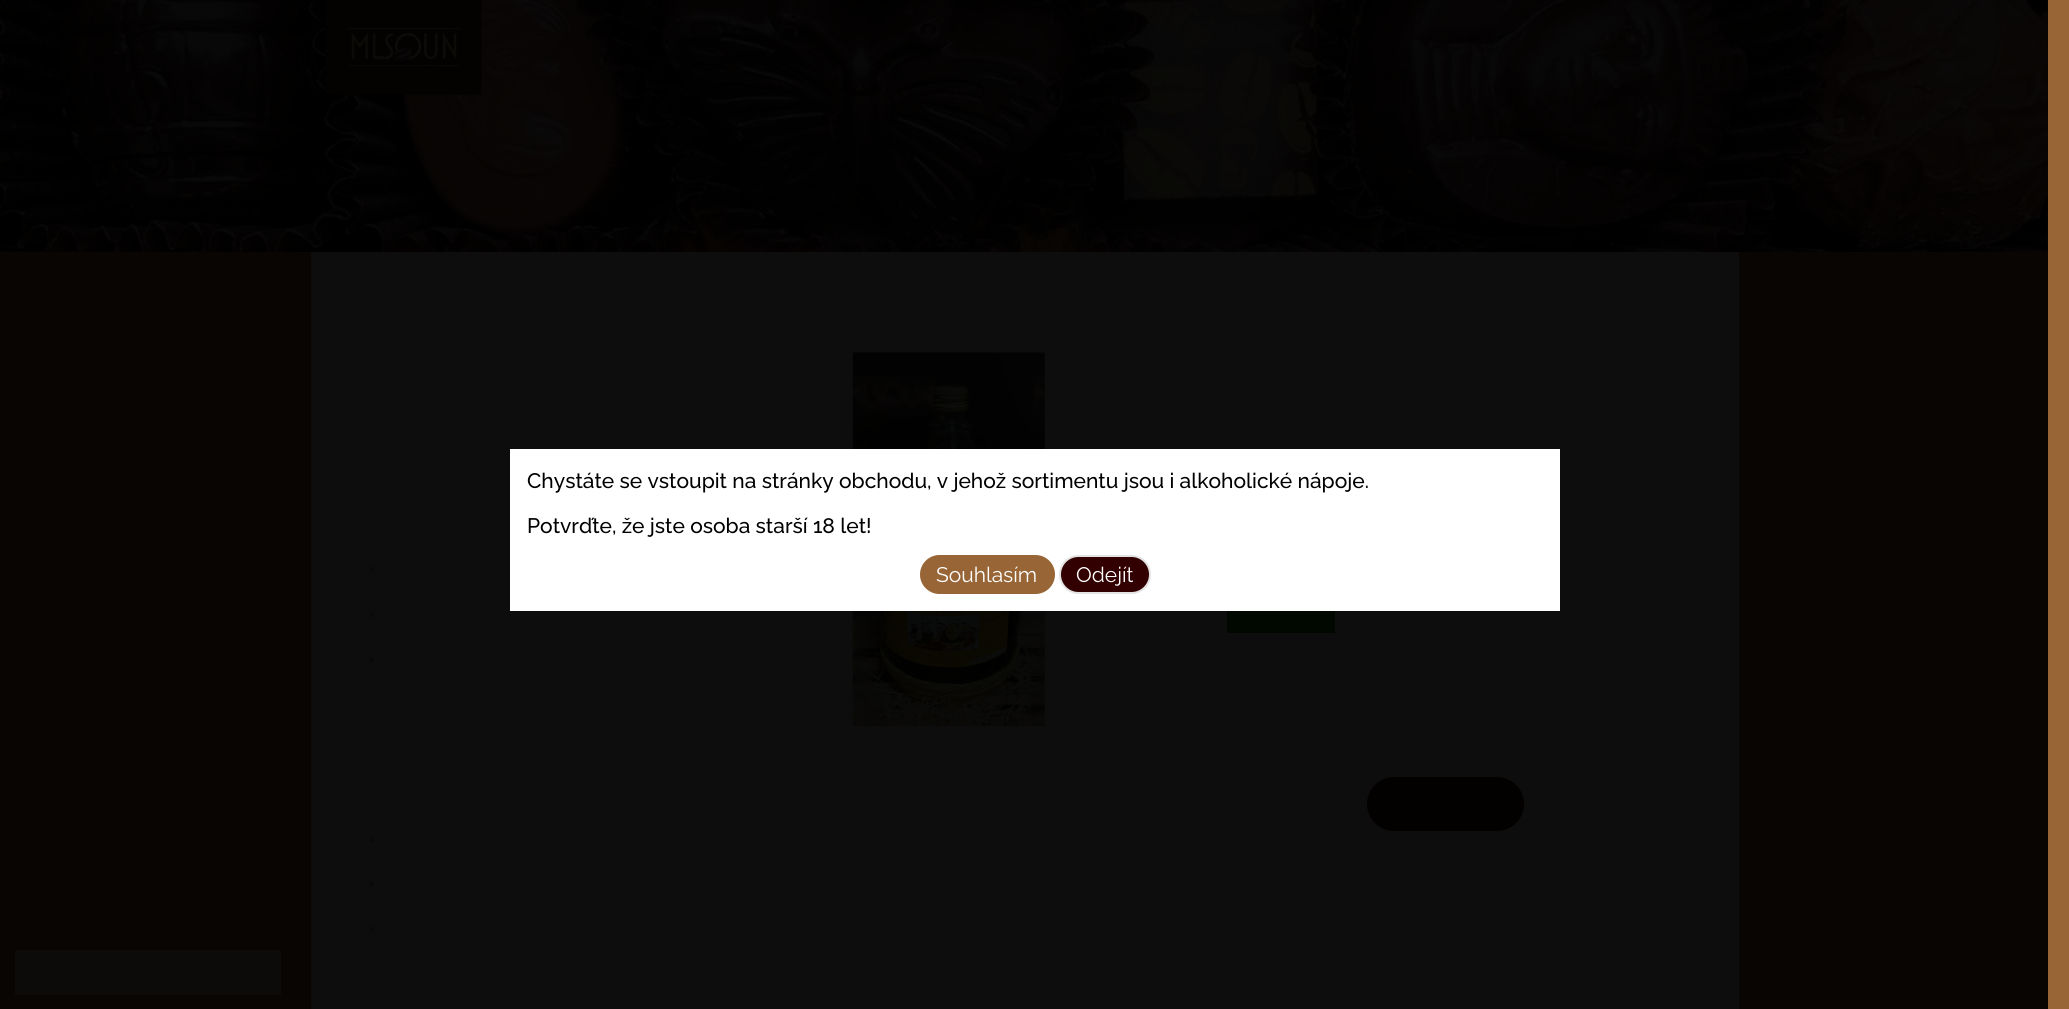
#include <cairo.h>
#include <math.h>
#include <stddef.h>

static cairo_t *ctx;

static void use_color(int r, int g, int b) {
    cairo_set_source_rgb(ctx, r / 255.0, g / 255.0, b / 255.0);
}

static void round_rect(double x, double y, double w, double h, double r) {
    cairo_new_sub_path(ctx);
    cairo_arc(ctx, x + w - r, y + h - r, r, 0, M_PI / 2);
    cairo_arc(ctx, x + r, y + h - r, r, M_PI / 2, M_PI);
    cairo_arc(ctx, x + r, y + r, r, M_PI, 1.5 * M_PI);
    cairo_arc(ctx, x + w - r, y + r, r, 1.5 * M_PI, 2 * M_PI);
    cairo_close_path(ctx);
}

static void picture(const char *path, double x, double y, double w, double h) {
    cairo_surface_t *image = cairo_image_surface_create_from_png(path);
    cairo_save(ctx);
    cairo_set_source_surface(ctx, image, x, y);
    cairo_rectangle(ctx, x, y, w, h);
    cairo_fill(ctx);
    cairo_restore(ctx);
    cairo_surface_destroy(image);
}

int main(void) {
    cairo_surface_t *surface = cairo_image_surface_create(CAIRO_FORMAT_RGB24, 2069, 1009);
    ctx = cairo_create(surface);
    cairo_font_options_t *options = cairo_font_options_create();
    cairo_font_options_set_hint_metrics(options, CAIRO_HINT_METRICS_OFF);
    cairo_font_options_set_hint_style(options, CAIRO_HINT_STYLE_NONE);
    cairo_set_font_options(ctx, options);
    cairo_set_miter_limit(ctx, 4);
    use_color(152, 101, 54);
    cairo_paint(ctx);
    use_color(8, 5, 3);
    cairo_rectangle(ctx, 0, 0, 2048, 1009);
    cairo_fill(ctx);
    picture("img1.png", 0, 0, 2048, 252);
    picture("img2.png", 325, 0, 157, 95);
    use_color(12, 11, 10);
    cairo_rectangle(ctx, 15, 950, 266, 45);
    cairo_fill(ctx);
    use_color(13, 13, 13);
    cairo_rectangle(ctx, 311, 252, 1428, 757);
    cairo_fill(ctx);
    use_color(10, 10, 10);
    cairo_rectangle(ctx, 369, 567, 5, 5);
    cairo_fill(ctx);
    cairo_rectangle(ctx, 369, 612, 5, 5);
    cairo_fill(ctx);
    cairo_rectangle(ctx, 369, 657, 5, 5);
    cairo_fill(ctx);
    cairo_rectangle(ctx, 369, 837, 5, 5);
    cairo_fill(ctx);
    cairo_rectangle(ctx, 369, 882, 5, 5);
    cairo_fill(ctx);
    cairo_rectangle(ctx, 369, 927, 5, 5);
    cairo_fill(ctx);
    picture("img3.png", 851, 352, 195, 374);
    use_color(0, 8, 0);
    cairo_rectangle(ctx, 1227, 611, 108, 22);
    cairo_fill(ctx);
    use_color(3, 0, 0);
    round_rect(1368, 778, 155, 52, 26);
    cairo_fill_preserve(ctx);
    cairo_stroke(ctx);
    use_color(255, 255, 255);
    cairo_rectangle(ctx, 510, 449, 1050, 162);
    cairo_fill(ctx);
    cairo_select_font_face(ctx, "Raleway Medium", CAIRO_FONT_SLANT_NORMAL, CAIRO_FONT_WEIGHT_NORMAL);
    cairo_set_font_size(ctx, 21);
    use_color(0, 0, 0);
    cairo_move_to(ctx, 527, 488);
    cairo_show_text(ctx, "Chystáte se vstoupit na stránky obchodu, v jehož sortimentu jsou i alkoholické nápoje.");
    cairo_move_to(ctx, 527, 533);
    cairo_show_text(ctx, "Potvrďte, že jste osoba starší 18 let!");
    use_color(152, 101, 54);
    round_rect(921, 556, 133, 37, 18.5);
    cairo_fill_preserve(ctx);
    cairo_stroke(ctx);
    cairo_select_font_face(ctx, "Raleway", CAIRO_FONT_SLANT_NORMAL, CAIRO_FONT_WEIGHT_NORMAL);
    use_color(255, 255, 255);
    cairo_move_to(ctx, 936, 582);
    cairo_show_text(ctx, "Souhlasím");
    use_color(51, 0, 1);
    round_rect(1060, 556, 90, 37, 18.5);
    cairo_fill_preserve(ctx);
    use_color(227, 227, 227);
    cairo_stroke(ctx);
    use_color(255, 255, 255);
    cairo_move_to(ctx, 1076, 582);
    cairo_show_text(ctx, "Odejít");
    cairo_surface_write_to_png(surface, "result.png");
    cairo_font_options_destroy(options);
    cairo_destroy(ctx);
    cairo_surface_destroy(surface);
    return 0;
}
